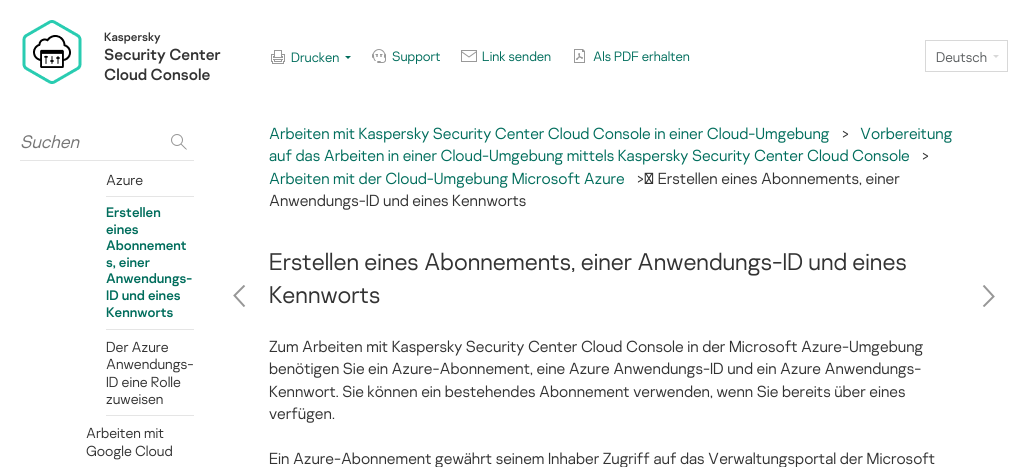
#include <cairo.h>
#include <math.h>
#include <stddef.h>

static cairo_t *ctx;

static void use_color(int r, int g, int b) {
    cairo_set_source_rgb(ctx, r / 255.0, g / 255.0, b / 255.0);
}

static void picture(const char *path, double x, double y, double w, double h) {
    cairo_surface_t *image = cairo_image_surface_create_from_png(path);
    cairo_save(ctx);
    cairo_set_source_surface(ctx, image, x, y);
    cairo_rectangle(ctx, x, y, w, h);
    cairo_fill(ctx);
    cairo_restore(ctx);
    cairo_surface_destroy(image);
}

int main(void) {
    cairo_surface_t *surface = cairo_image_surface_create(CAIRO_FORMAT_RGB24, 1028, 467);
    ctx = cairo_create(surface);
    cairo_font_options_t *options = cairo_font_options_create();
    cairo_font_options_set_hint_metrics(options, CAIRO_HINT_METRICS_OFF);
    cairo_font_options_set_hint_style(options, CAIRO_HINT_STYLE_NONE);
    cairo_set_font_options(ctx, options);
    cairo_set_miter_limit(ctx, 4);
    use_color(255, 255, 255);
    cairo_paint(ctx);
    picture("img1.png", 22, 20, 60, 64);
    cairo_select_font_face(ctx, "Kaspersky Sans", CAIRO_FONT_SLANT_NORMAL, CAIRO_FONT_WEIGHT_NORMAL);
    cairo_set_font_size(ctx, 12);
    use_color(51, 51, 51);
    cairo_move_to(ctx, 104, 41);
    cairo_show_text(ctx, "Kaspersky");
    cairo_set_font_size(ctx, 16);
    cairo_move_to(ctx, 104, 60);
    cairo_show_text(ctx, "Security Center");
    cairo_move_to(ctx, 104, 80);
    cairo_show_text(ctx, "Cloud Console");
    picture("img2.png", 271, 50, 14, 14);
    cairo_select_font_face(ctx, "Kaspersky Sans Light", CAIRO_FONT_SLANT_NORMAL, CAIRO_FONT_WEIGHT_NORMAL);
    cairo_set_font_size(ctx, 13.5);
    use_color(0, 109, 92);
    cairo_move_to(ctx, 291, 62);
    cairo_show_text(ctx, "Drucken");
    cairo_new_path(ctx);
    cairo_move_to(ctx, 345, 56);
    cairo_line_to(ctx, 351, 56);
    cairo_line_to(ctx, 348, 59);
    cairo_close_path(ctx);
    cairo_fill(ctx);
    picture("img3.png", 372, 49, 14, 14);
    cairo_move_to(ctx, 392, 61);
    cairo_show_text(ctx, "Support");
    picture("img4.png", 461, 50, 16, 12);
    cairo_move_to(ctx, 482, 61);
    cairo_show_text(ctx, "Link senden");
    picture("img5.png", 574, 49, 11, 14);
    cairo_move_to(ctx, 593, 61);
    cairo_show_text(ctx, "Als PDF erhalten");
    cairo_rectangle(ctx, 925.5, 40.5, 82, 31);
    use_color(216, 216, 216);
    cairo_set_line_width(ctx, 1);
    cairo_stroke(ctx);
    cairo_set_font_size(ctx, 14);
    use_color(92, 95, 97);
    cairo_move_to(ctx, 936, 62);
    cairo_show_text(ctx, "Deutsch");
    picture("img6.png", 993, 55, 6, 3);
    use_color(229, 229, 229);
    cairo_rectangle(ctx, 20, 160, 174, 1);
    cairo_fill(ctx);
    cairo_select_font_face(ctx, "Kaspersky Sans Light", CAIRO_FONT_SLANT_ITALIC, CAIRO_FONT_WEIGHT_NORMAL);
    cairo_set_font_size(ctx, 18);
    use_color(117, 117, 117);
    cairo_move_to(ctx, 20, 148);
    cairo_show_text(ctx, "Suchen");
    picture("img7.png", 171, 134, 16, 16);
    use_color(229, 229, 229);
    cairo_rectangle(ctx, 106, 196, 88, 1);
    cairo_fill(ctx);
    cairo_select_font_face(ctx, "Kaspersky Sans Light", CAIRO_FONT_SLANT_NORMAL, CAIRO_FONT_WEIGHT_NORMAL);
    cairo_set_font_size(ctx, 14.5);
    use_color(51, 51, 51);
    cairo_move_to(ctx, 106, 185);
    cairo_show_text(ctx, "Azure");
    use_color(229, 229, 229);
    cairo_rectangle(ctx, 106, 329, 88, 1);
    cairo_fill(ctx);
    cairo_select_font_face(ctx, "Kaspersky Sans", CAIRO_FONT_SLANT_NORMAL, CAIRO_FONT_WEIGHT_NORMAL);
    cairo_set_font_size(ctx, 13.75);
    use_color(0, 109, 92);
    cairo_move_to(ctx, 106, 217);
    cairo_show_text(ctx, "Erstellen");
    cairo_move_to(ctx, 106, 234);
    cairo_show_text(ctx, "eines");
    cairo_move_to(ctx, 106, 250);
    cairo_show_text(ctx, "Abonnement");
    cairo_move_to(ctx, 106, 267);
    cairo_show_text(ctx, "s, einer");
    cairo_move_to(ctx, 106, 283);
    cairo_show_text(ctx, "Anwendungs-");
    cairo_move_to(ctx, 106, 300);
    cairo_show_text(ctx, "ID und eines");
    cairo_move_to(ctx, 106, 317);
    cairo_show_text(ctx, "Kennworts");
    use_color(229, 229, 229);
    cairo_rectangle(ctx, 106, 415, 88, 1);
    cairo_fill(ctx);
    cairo_select_font_face(ctx, "Kaspersky Sans Light", CAIRO_FONT_SLANT_NORMAL, CAIRO_FONT_WEIGHT_NORMAL);
    cairo_set_font_size(ctx, 14.5);
    use_color(51, 51, 51);
    cairo_move_to(ctx, 106, 352);
    cairo_show_text(ctx, "Der Azure");
    cairo_move_to(ctx, 106, 369);
    cairo_show_text(ctx, "Anwendungs-");
    cairo_move_to(ctx, 106, 387);
    cairo_show_text(ctx, "ID eine Rolle");
    cairo_move_to(ctx, 106, 404);
    cairo_show_text(ctx, "zuweisen");
    cairo_move_to(ctx, 86, 438);
    cairo_show_text(ctx, "Arbeiten mit");
    cairo_move_to(ctx, 86, 456);
    cairo_show_text(ctx, "Google Cloud");
    picture("img8.png", 233, 285, 13, 22);
    cairo_set_font_size(ctx, 16);
    use_color(0, 109, 92);
    cairo_move_to(ctx, 269, 139);
    cairo_show_text(ctx, "Arbeiten mit Kaspersky Security Center Cloud Console in einer Cloud-Umgebung");
    use_color(51, 51, 51);
    cairo_move_to(ctx, 842, 139);
    cairo_show_text(ctx, ">");
    use_color(0, 109, 92);
    cairo_move_to(ctx, 860, 139);
    cairo_show_text(ctx, "Vorbereitung");
    cairo_move_to(ctx, 269, 161);
    cairo_show_text(ctx, "auf das Arbeiten in einer Cloud-Umgebung mittels Kaspersky Security Center Cloud Console");
    use_color(51, 51, 51);
    cairo_move_to(ctx, 922, 161);
    cairo_show_text(ctx, ">");
    use_color(0, 109, 92);
    cairo_move_to(ctx, 269, 184);
    cairo_show_text(ctx, "Arbeiten mit der Cloud-Umgebung Microsoft Azure");
    use_color(51, 51, 51);
    cairo_move_to(ctx, 637, 184);
    cairo_show_text(ctx, ">  Erstellen eines Abonnements, einer");
    cairo_move_to(ctx, 269, 206);
    cairo_show_text(ctx, "Anwendungs-ID und eines Kennworts");
    cairo_set_font_size(ctx, 24);
    cairo_move_to(ctx, 269, 270);
    cairo_show_text(ctx, "Erstellen eines Abonnements, einer Anwendungs-ID und eines");
    cairo_move_to(ctx, 269, 303);
    cairo_show_text(ctx, "Kennworts");
    cairo_set_font_size(ctx, 16);
    cairo_move_to(ctx, 269, 352);
    cairo_show_text(ctx, "Zum Arbeiten mit Kaspersky Security Center Cloud Console in der Microsoft Azure-Umgebung");
    cairo_move_to(ctx, 269, 374);
    cairo_show_text(ctx, "benötigen Sie ein Azure-Abonnement, eine Azure Anwendungs-ID und ein Azure Anwendungs-");
    cairo_move_to(ctx, 269, 397);
    cairo_show_text(ctx, "Kennwort. Sie können ein bestehendes Abonnement verwenden, wenn Sie bereits über eines");
    cairo_move_to(ctx, 269, 419);
    cairo_show_text(ctx, "verfügen.");
    cairo_move_to(ctx, 269, 464);
    cairo_show_text(ctx, "Ein Azure-Abonnement gewährt seinem Inhaber Zugriff auf das Verwaltungsportal der Microsoft");
    picture("img9.png", 982, 285, 13, 22);
    cairo_surface_write_to_png(surface, "result.png");
    cairo_font_options_destroy(options);
    cairo_destroy(ctx);
    cairo_surface_destroy(surface);
    return 0;
}
